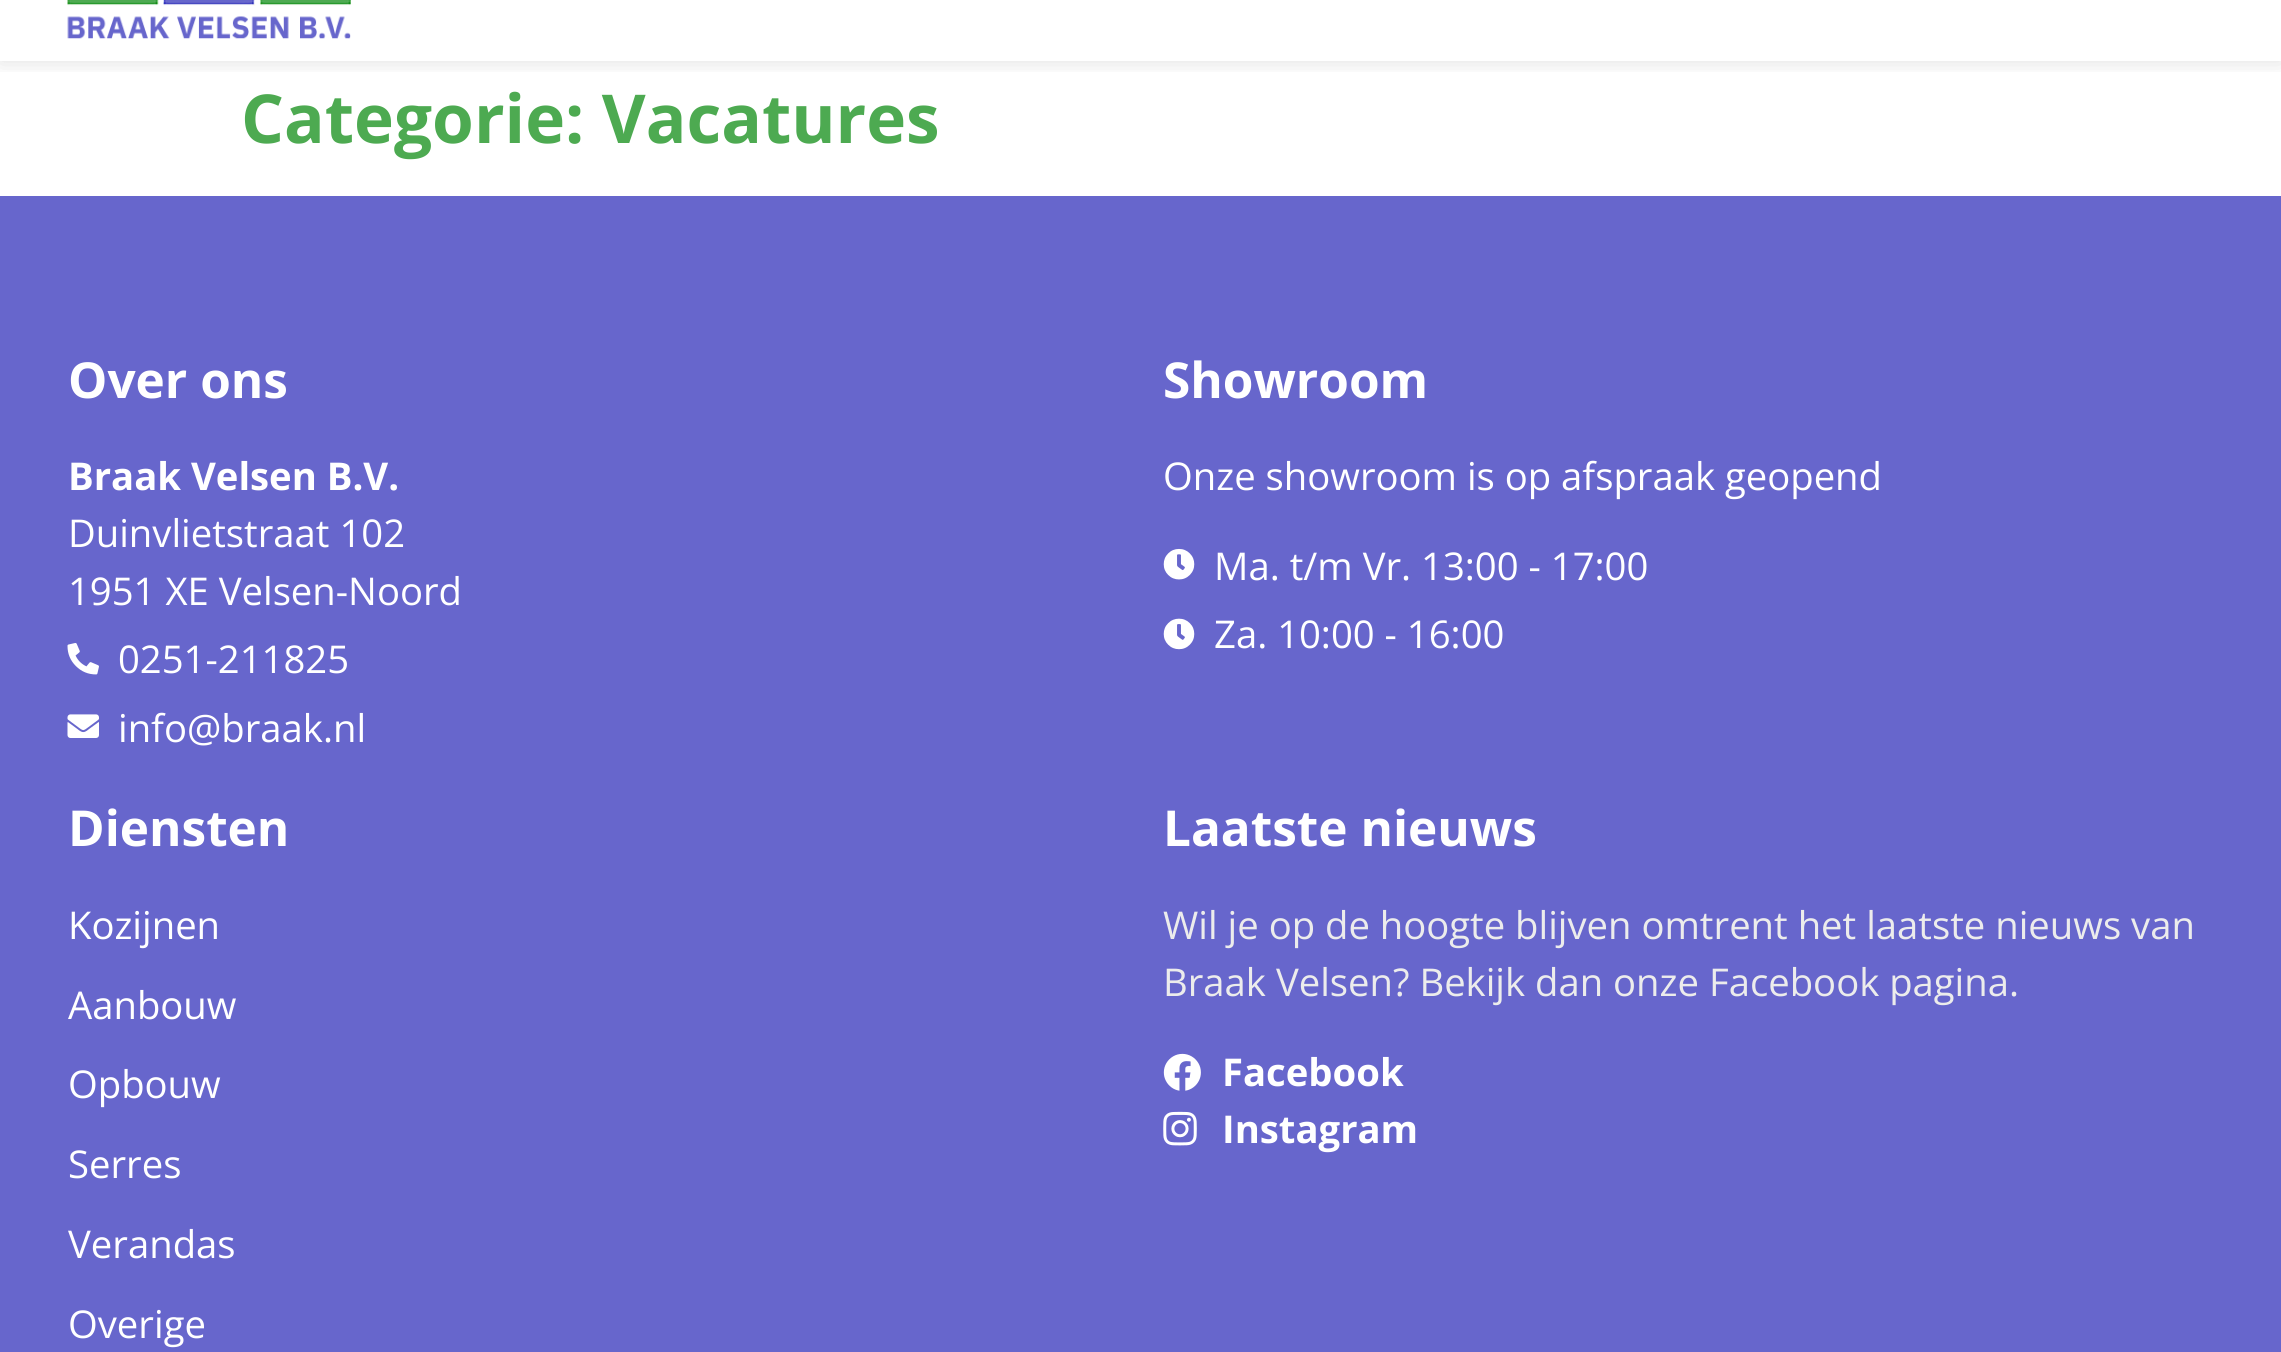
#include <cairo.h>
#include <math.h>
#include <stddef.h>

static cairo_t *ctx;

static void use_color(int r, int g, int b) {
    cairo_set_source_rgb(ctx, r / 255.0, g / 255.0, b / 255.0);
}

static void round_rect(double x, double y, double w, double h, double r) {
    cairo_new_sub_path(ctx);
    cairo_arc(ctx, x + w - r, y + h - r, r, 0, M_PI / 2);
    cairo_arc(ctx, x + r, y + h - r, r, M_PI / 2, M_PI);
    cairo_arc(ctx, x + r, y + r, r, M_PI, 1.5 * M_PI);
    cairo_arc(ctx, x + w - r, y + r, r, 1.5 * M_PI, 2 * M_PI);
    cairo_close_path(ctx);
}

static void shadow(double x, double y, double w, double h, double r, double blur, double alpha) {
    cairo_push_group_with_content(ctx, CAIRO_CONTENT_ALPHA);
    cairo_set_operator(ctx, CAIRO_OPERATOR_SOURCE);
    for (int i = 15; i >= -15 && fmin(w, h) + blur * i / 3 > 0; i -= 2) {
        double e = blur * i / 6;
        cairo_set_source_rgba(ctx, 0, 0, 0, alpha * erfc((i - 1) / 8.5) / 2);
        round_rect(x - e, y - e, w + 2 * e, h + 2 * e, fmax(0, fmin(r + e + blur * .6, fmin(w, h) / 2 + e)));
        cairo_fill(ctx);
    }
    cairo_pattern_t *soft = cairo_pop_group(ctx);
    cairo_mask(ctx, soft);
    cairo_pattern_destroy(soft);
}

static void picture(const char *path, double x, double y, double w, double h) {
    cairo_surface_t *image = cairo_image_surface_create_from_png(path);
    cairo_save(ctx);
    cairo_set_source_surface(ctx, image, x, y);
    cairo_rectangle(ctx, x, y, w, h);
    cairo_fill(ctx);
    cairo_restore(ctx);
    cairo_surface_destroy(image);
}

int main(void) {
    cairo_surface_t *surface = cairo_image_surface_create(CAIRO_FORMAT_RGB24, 2281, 1352);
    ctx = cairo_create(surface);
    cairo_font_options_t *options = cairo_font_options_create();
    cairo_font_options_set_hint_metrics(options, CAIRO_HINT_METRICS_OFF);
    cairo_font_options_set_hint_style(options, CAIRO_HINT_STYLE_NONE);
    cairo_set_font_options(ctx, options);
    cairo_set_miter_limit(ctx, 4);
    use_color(255, 255, 255);
    cairo_paint(ctx);
    cairo_save(ctx);
    cairo_rectangle(ctx, 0, 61, 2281, 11);
    cairo_clip(ctx);
    use_color(0, 0, 0);
    shadow(0, -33, 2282, 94, 0, 11, 0.13);
    cairo_restore(ctx);
    picture("img1.png", 67, 0, 284, 39);
    cairo_select_font_face(ctx, "Open Sans", CAIRO_FONT_SLANT_NORMAL, CAIRO_FONT_WEIGHT_BOLD);
    cairo_set_font_size(ctx, 67.5);
    use_color(77, 170, 81);
    cairo_move_to(ctx, 241, 143);
    cairo_show_text(ctx, "Categorie: Vacatures");
    use_color(103, 102, 204);
    cairo_rectangle(ctx, 0, 196, 2281, 1156);
    cairo_fill(ctx);
    cairo_set_font_size(ctx, 49.5);
    use_color(255, 255, 255);
    cairo_move_to(ctx, 68, 398);
    cairo_show_text(ctx, "Over ons");
    cairo_set_font_size(ctx, 38.25);
    cairo_move_to(ctx, 68, 490);
    cairo_show_text(ctx, "Braak Velsen B.V.");
    cairo_select_font_face(ctx, "Open Sans", CAIRO_FONT_SLANT_NORMAL, CAIRO_FONT_WEIGHT_NORMAL);
    cairo_move_to(ctx, 68, 547);
    cairo_show_text(ctx, "Duinvlietstraat 102");
    cairo_move_to(ctx, 68, 605);
    cairo_show_text(ctx, "1951 XE Velsen-Noord");
    picture("img2.png", 67, 643, 32, 32);
    cairo_move_to(ctx, 118, 673);
    cairo_show_text(ctx, "0251-211825");
    picture("img3.png", 67, 714, 32, 24);
    cairo_move_to(ctx, 118, 742);
    cairo_show_text(ctx, "info@braak.nl");
    cairo_select_font_face(ctx, "Open Sans", CAIRO_FONT_SLANT_NORMAL, CAIRO_FONT_WEIGHT_BOLD);
    cairo_set_font_size(ctx, 49.5);
    cairo_move_to(ctx, 1163, 398);
    cairo_show_text(ctx, "Showroom");
    cairo_select_font_face(ctx, "Open Sans", CAIRO_FONT_SLANT_NORMAL, CAIRO_FONT_WEIGHT_NORMAL);
    cairo_set_font_size(ctx, 38.25);
    cairo_move_to(ctx, 1163, 490);
    cairo_show_text(ctx, "Onze showroom is op afspraak geopend");
    picture("img4.png", 1163, 548, 32, 32);
    cairo_move_to(ctx, 1214, 580);
    cairo_show_text(ctx, "Ma. t/m Vr. 13:00 - 17:00");
    picture("img5.png", 1163, 618, 32, 32);
    cairo_move_to(ctx, 1214, 648);
    cairo_show_text(ctx, "Za. 10:00 - 16:00");
    cairo_select_font_face(ctx, "Open Sans", CAIRO_FONT_SLANT_NORMAL, CAIRO_FONT_WEIGHT_BOLD);
    cairo_set_font_size(ctx, 49.5);
    cairo_move_to(ctx, 68, 846);
    cairo_show_text(ctx, "Diensten");
    cairo_select_font_face(ctx, "Open Sans", CAIRO_FONT_SLANT_NORMAL, CAIRO_FONT_WEIGHT_NORMAL);
    cairo_set_font_size(ctx, 38.25);
    cairo_move_to(ctx, 68, 939);
    cairo_show_text(ctx, "Kozijnen");
    cairo_move_to(ctx, 68, 1019);
    cairo_show_text(ctx, "Aanbouw");
    cairo_move_to(ctx, 68, 1098);
    cairo_show_text(ctx, "Opbouw");
    cairo_move_to(ctx, 68, 1178);
    cairo_show_text(ctx, "Serres");
    cairo_move_to(ctx, 68, 1258);
    cairo_show_text(ctx, "Verandas");
    cairo_move_to(ctx, 68, 1338);
    cairo_show_text(ctx, "Overige");
    cairo_select_font_face(ctx, "Open Sans", CAIRO_FONT_SLANT_NORMAL, CAIRO_FONT_WEIGHT_BOLD);
    cairo_set_font_size(ctx, 49.5);
    cairo_move_to(ctx, 1163, 846);
    cairo_show_text(ctx, "Laatste nieuws");
    cairo_select_font_face(ctx, "Open Sans", CAIRO_FONT_SLANT_NORMAL, CAIRO_FONT_WEIGHT_NORMAL);
    cairo_set_font_size(ctx, 38.25);
    use_color(236, 236, 236);
    cairo_move_to(ctx, 1163, 939);
    cairo_show_text(ctx, "Wil je op de hoogte blijven omtrent het laatste nieuws van");
    cairo_move_to(ctx, 1163, 996);
    cairo_show_text(ctx, "Braak Velsen? Bekijk dan onze Facebook pagina.");
    picture("img6.png", 1163, 1053, 38, 38);
    cairo_select_font_face(ctx, "Open Sans", CAIRO_FONT_SLANT_NORMAL, CAIRO_FONT_WEIGHT_BOLD);
    use_color(255, 255, 255);
    cairo_move_to(ctx, 1222, 1086);
    cairo_show_text(ctx, "Facebook");
    picture("img7.png", 1163, 1111, 34, 35);
    cairo_move_to(ctx, 1222, 1143);
    cairo_show_text(ctx, "Instagram");
    cairo_surface_write_to_png(surface, "result.png");
    cairo_font_options_destroy(options);
    cairo_destroy(ctx);
    cairo_surface_destroy(surface);
    return 0;
}
